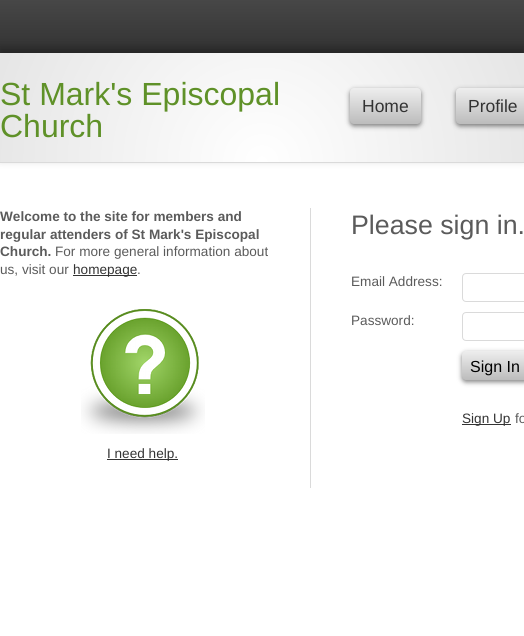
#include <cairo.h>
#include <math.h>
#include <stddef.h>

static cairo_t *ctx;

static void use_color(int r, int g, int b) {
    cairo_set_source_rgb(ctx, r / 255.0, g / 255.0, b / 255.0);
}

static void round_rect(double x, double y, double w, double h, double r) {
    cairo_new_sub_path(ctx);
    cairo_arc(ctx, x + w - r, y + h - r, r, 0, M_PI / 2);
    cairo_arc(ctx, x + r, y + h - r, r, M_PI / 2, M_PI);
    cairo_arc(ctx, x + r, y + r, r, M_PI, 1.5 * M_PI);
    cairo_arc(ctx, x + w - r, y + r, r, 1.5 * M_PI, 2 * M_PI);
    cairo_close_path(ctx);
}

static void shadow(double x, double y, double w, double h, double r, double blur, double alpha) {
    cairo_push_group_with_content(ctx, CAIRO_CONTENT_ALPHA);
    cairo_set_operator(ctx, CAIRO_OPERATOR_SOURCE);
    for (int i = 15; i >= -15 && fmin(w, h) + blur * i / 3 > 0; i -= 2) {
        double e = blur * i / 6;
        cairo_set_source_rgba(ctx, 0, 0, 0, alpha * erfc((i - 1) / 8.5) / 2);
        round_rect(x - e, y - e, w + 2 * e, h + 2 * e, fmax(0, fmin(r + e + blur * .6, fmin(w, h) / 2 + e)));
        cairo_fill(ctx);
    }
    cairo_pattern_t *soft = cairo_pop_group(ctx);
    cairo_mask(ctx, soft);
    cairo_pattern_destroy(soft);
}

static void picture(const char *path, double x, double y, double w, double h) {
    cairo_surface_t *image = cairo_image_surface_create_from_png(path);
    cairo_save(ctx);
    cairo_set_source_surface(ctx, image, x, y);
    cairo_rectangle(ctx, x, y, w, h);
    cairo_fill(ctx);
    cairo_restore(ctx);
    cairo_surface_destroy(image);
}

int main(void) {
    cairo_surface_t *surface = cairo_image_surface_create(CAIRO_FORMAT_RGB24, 524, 636);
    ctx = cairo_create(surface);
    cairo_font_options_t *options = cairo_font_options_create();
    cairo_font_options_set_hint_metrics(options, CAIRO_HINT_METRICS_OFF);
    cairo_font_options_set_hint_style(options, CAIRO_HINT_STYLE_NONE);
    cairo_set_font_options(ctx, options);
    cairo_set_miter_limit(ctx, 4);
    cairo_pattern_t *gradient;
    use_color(255, 255, 255);
    cairo_paint(ctx);
    gradient = cairo_pattern_create_linear(0, 0, 0, 53);
    cairo_pattern_add_color_stop_rgba(gradient, 0, 0.278, 0.278, 0.278, 1);
    cairo_pattern_add_color_stop_rgba(gradient, 1, 0.2, 0.2, 0.2, 1);
    cairo_set_source(ctx, gradient);
    cairo_pattern_destroy(gradient);
    cairo_rectangle(ctx, 0, 0, 524, 53);
    cairo_fill(ctx);
    use_color(0, 0, 0);
    shadow(0, 48, 524, 110, 0, 5, 0.3);
    gradient = cairo_pattern_create_radial(262, 162, 0, 262, 162, 300);
    cairo_pattern_add_color_stop_rgba(gradient, 0, 1, 1, 1, 1);
    cairo_pattern_add_color_stop_rgba(gradient, 1, 0.894, 0.894, 0.894, 1);
    cairo_set_source(ctx, gradient);
    cairo_pattern_destroy(gradient);
    cairo_rectangle(ctx, 0, 53, 524, 109);
    cairo_fill(ctx);
    use_color(218, 218, 218);
    cairo_rectangle(ctx, 0, 162, 524, 1);
    cairo_fill(ctx);
    cairo_select_font_face(ctx, "Liberation Sans", CAIRO_FONT_SLANT_NORMAL, CAIRO_FONT_WEIGHT_NORMAL);
    cairo_set_font_size(ctx, 32);
    use_color(95, 145, 40);
    cairo_move_to(ctx, 0, 105);
    cairo_show_text(ctx, "St Mark's Episcopal");
    cairo_move_to(ctx, 0, 137);
    cairo_show_text(ctx, "Church");
    use_color(0, 0, 0);
    shadow(350, 90, 71, 36, 4, 2.5, 0.5);
    gradient = cairo_pattern_create_linear(350, 88, 350, 124);
    cairo_pattern_add_color_stop_rgba(gradient, 0, 0.933, 0.933, 0.933, 1);
    cairo_pattern_add_color_stop_rgba(gradient, 1, 0.737, 0.737, 0.737, 1);
    cairo_set_source(ctx, gradient);
    cairo_pattern_destroy(gradient);
    round_rect(350, 88, 71, 36, 4);
    cairo_fill(ctx);
    cairo_set_font_size(ctx, 17.5);
    use_color(51, 51, 51);
    cairo_move_to(ctx, 362, 112);
    cairo_show_text(ctx, "Home");
    use_color(0, 0, 0);
    shadow(456, 90, 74, 36, 4, 2.5, 0.5);
    gradient = cairo_pattern_create_linear(456, 88, 456, 124);
    cairo_pattern_add_color_stop_rgba(gradient, 0, 0.933, 0.933, 0.933, 1);
    cairo_pattern_add_color_stop_rgba(gradient, 1, 0.737, 0.737, 0.737, 1);
    cairo_set_source(ctx, gradient);
    cairo_pattern_destroy(gradient);
    round_rect(456, 88, 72, 36, 4);
    cairo_fill(ctx);
    use_color(51, 51, 51);
    cairo_move_to(ctx, 468, 112);
    cairo_show_text(ctx, "Profile");
    use_color(218, 218, 218);
    cairo_rectangle(ctx, 310, 208, 1, 280);
    cairo_fill(ctx);
    cairo_select_font_face(ctx, "Liberation Sans", CAIRO_FONT_SLANT_NORMAL, CAIRO_FONT_WEIGHT_BOLD);
    cairo_set_font_size(ctx, 13.6);
    use_color(91, 91, 91);
    cairo_move_to(ctx, 0, 221);
    cairo_show_text(ctx, "Welcome to the site for members and");
    cairo_move_to(ctx, 0, 239);
    cairo_show_text(ctx, "regular attenders of St Mark's Episcopal");
    cairo_move_to(ctx, 0, 256);
    cairo_show_text(ctx, "Church.");
    cairo_select_font_face(ctx, "Liberation Sans", CAIRO_FONT_SLANT_NORMAL, CAIRO_FONT_WEIGHT_NORMAL);
    cairo_move_to(ctx, 55, 256);
    cairo_show_text(ctx, "For more general information about");
    cairo_move_to(ctx, 0, 274);
    cairo_show_text(ctx, "us, visit our");
    use_color(51, 51, 51);
    cairo_rectangle(ctx, 73, 275, 64, 1);
    cairo_fill(ctx);
    cairo_move_to(ctx, 73, 274);
    cairo_show_text(ctx, "homepage");
    use_color(91, 91, 91);
    cairo_move_to(ctx, 137, 274);
    cairo_show_text(ctx, ".");
    picture("img1.png", 81, 309, 124, 125);
    use_color(51, 51, 51);
    cairo_rectangle(ctx, 107, 459, 71, 1);
    cairo_fill(ctx);
    cairo_move_to(ctx, 107, 458);
    cairo_show_text(ctx, "I need help.");
    cairo_set_font_size(ctx, 26.75);
    use_color(91, 91, 91);
    cairo_move_to(ctx, 351, 234);
    cairo_show_text(ctx, "Please sign in.");
    cairo_set_font_size(ctx, 13.6);
    cairo_move_to(ctx, 351, 286);
    cairo_show_text(ctx, "Email Address:");
    round_rect(462.5, 273.5, 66, 28, 3.5);
    use_color(218, 218, 218);
    cairo_set_line_width(ctx, 1);
    cairo_stroke(ctx);
    use_color(91, 91, 91);
    cairo_move_to(ctx, 351, 325);
    cairo_show_text(ctx, "Password:");
    round_rect(462.5, 312.5, 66, 28, 3.5);
    use_color(218, 218, 218);
    cairo_stroke(ctx);
    use_color(0, 0, 0);
    shadow(462, 353, 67, 29, 4, 2.5, 0.5);
    gradient = cairo_pattern_create_linear(462, 351, 462, 380);
    cairo_pattern_add_color_stop_rgba(gradient, 0, 0.933, 0.933, 0.933, 1);
    cairo_pattern_add_color_stop_rgba(gradient, 1, 0.737, 0.737, 0.737, 1);
    cairo_set_source(ctx, gradient);
    cairo_pattern_destroy(gradient);
    round_rect(462, 351, 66, 29, 4);
    cairo_fill(ctx);
    cairo_set_font_size(ctx, 16);
    use_color(0, 0, 0);
    cairo_move_to(ctx, 470, 372);
    cairo_show_text(ctx, "Sign In");
    use_color(51, 51, 51);
    cairo_rectangle(ctx, 462, 424, 49, 1);
    cairo_fill(ctx);
    cairo_set_font_size(ctx, 13.6);
    cairo_move_to(ctx, 462, 423);
    cairo_show_text(ctx, "Sign Up");
    use_color(91, 91, 91);
    cairo_move_to(ctx, 515, 423);
    cairo_show_text(ctx, "fo");
    cairo_surface_write_to_png(surface, "result.png");
    cairo_font_options_destroy(options);
    cairo_destroy(ctx);
    cairo_surface_destroy(surface);
    return 0;
}
